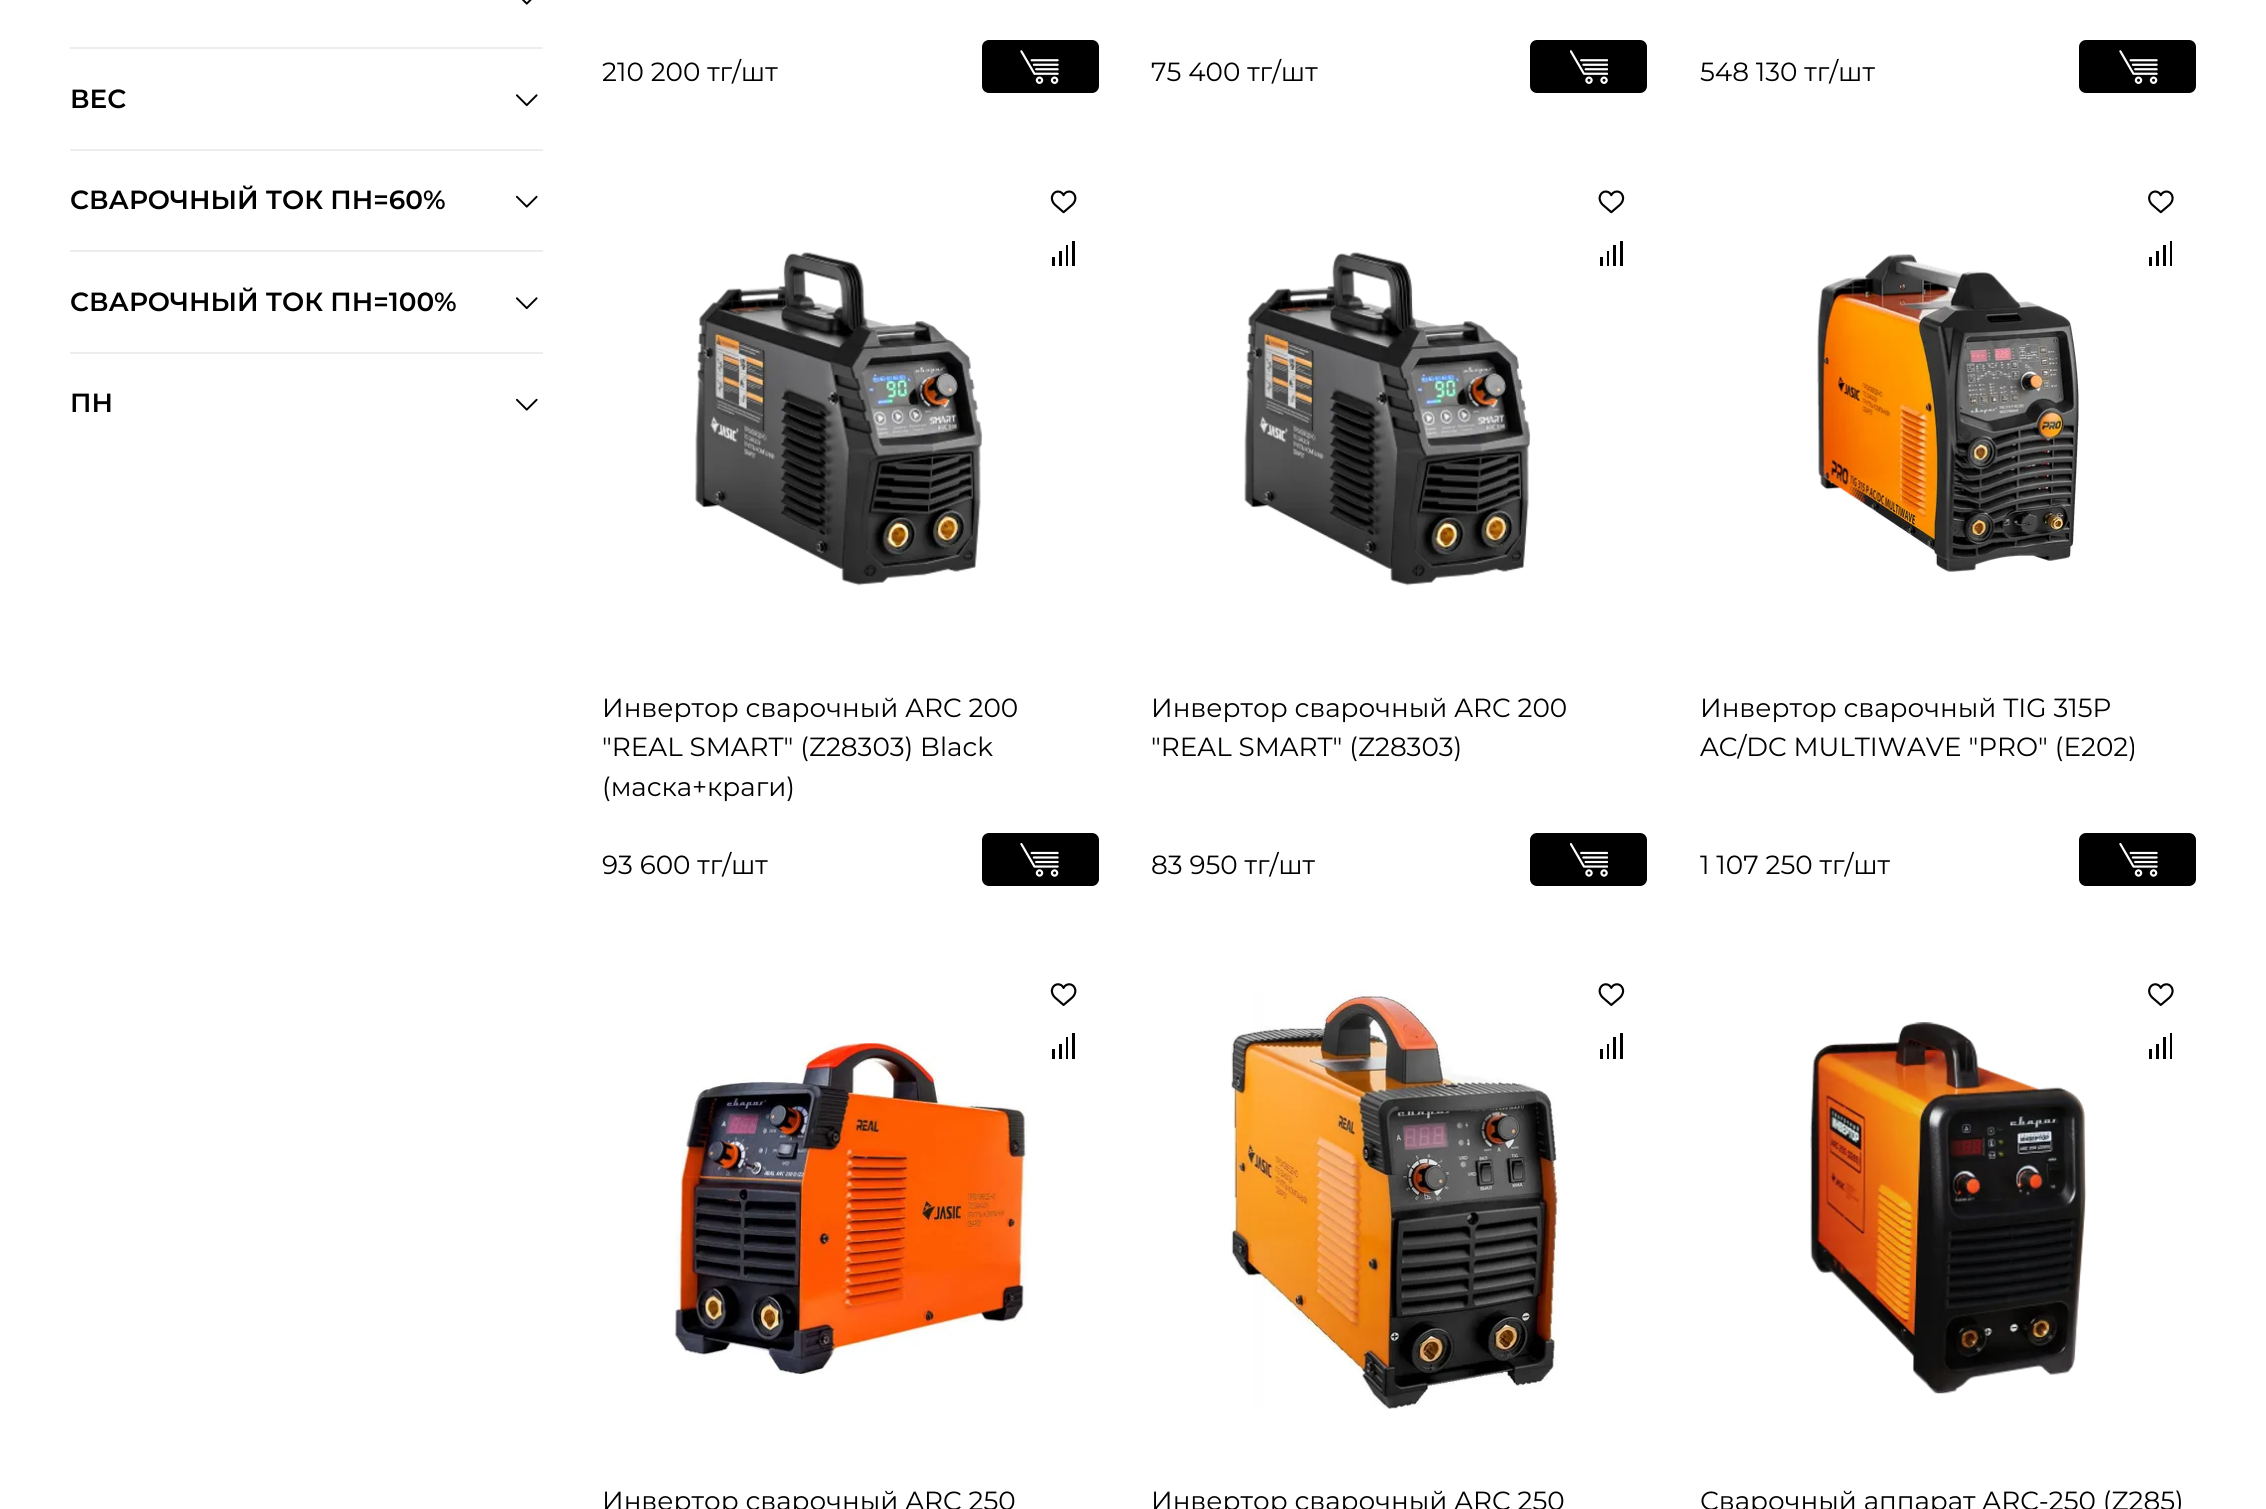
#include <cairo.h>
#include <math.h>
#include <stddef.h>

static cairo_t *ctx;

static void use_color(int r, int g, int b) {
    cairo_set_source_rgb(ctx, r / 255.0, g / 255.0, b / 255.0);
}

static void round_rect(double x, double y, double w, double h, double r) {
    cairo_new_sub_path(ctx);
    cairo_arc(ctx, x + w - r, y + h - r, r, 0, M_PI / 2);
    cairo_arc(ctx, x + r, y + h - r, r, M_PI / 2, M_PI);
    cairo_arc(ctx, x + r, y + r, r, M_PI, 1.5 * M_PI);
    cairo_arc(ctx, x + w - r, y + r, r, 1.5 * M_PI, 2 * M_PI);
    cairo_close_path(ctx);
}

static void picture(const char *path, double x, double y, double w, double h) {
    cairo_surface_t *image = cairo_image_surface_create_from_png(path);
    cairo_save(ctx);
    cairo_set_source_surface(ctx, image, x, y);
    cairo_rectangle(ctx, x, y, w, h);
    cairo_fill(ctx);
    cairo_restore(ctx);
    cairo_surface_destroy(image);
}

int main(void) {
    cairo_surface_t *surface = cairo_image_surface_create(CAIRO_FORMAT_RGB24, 2266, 1509);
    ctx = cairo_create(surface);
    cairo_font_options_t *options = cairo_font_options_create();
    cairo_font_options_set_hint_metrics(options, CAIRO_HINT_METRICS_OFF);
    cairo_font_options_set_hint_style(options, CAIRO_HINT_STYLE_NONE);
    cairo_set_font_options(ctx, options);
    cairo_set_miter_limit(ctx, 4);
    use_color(255, 255, 255);
    cairo_paint(ctx);
    use_color(237, 237, 237);
    cairo_rectangle(ctx, 70, 47, 473, 2);
    cairo_fill(ctx);
    picture("img1.png", 521, 0, 11, 5);
    cairo_rectangle(ctx, 70, 149, 473, 2);
    cairo_fill(ctx);
    cairo_select_font_face(ctx, "Montserrat SemiBold", CAIRO_FONT_SLANT_NORMAL, CAIRO_FONT_WEIGHT_NORMAL);
    cairo_set_font_size(ctx, 26.25);
    use_color(0, 0, 0);
    cairo_move_to(ctx, 70, 108);
    cairo_show_text(ctx, "ВЕС");
    picture("img2.png", 515, 94, 23, 13);
    use_color(237, 237, 237);
    cairo_rectangle(ctx, 70, 250, 473, 2);
    cairo_fill(ctx);
    use_color(0, 0, 0);
    cairo_move_to(ctx, 70, 209);
    cairo_show_text(ctx, "СВАРОЧНЫЙ ТОК ПН=60%");
    picture("img3.png", 515, 195, 23, 13);
    use_color(237, 237, 237);
    cairo_rectangle(ctx, 70, 352, 473, 2);
    cairo_fill(ctx);
    use_color(0, 0, 0);
    cairo_move_to(ctx, 70, 311);
    cairo_show_text(ctx, "СВАРОЧНЫЙ ТОК ПН=100%");
    picture("img2.png", 515, 297, 23, 13);
    cairo_move_to(ctx, 70, 412);
    cairo_show_text(ctx, "ПН");
    picture("img3.png", 515, 398, 23, 13);
    cairo_select_font_face(ctx, "Montserrat", CAIRO_FONT_SLANT_NORMAL, CAIRO_FONT_WEIGHT_NORMAL);
    cairo_move_to(ctx, 602, 81);
    cairo_show_text(ctx, "210 200 тг/шт");
    round_rect(982, 40, 117, 53, 7);
    cairo_fill(ctx);
    picture("img4.png", 1020, 50, 39, 34);
    cairo_move_to(ctx, 1151, 81);
    cairo_show_text(ctx, "75 400 тг/шт");
    round_rect(1530, 40, 117, 53, 7);
    cairo_fill(ctx);
    picture("img5.png", 1570, 50, 38, 34);
    cairo_move_to(ctx, 1700, 81);
    cairo_show_text(ctx, "548 130 тг/шт");
    round_rect(2079, 40, 117, 53, 7);
    cairo_fill(ctx);
    picture("img4.png", 2119, 50, 39, 34);
    picture("img6.png", 1050, 190, 27, 24);
    picture("img7.png", 695, 251, 288, 335);
    cairo_rectangle(ctx, 1052, 257, 3, 9);
    cairo_fill(ctx);
    cairo_rectangle(ctx, 1059, 251, 3, 15);
    cairo_fill(ctx);
    cairo_rectangle(ctx, 1066, 245, 2, 21);
    cairo_fill(ctx);
    cairo_rectangle(ctx, 1072, 241, 3, 25);
    cairo_fill(ctx);
    cairo_move_to(ctx, 602, 717);
    cairo_show_text(ctx, "Инвертор сварочный ARC 200");
    cairo_move_to(ctx, 602, 756);
    cairo_show_text(ctx, "\"REAL SMART\" (Z28303) Black");
    cairo_move_to(ctx, 602, 796);
    cairo_show_text(ctx, "(маска+краги)");
    cairo_move_to(ctx, 602, 874);
    cairo_show_text(ctx, "93 600 тг/шт");
    round_rect(982, 833, 117, 53, 7);
    cairo_fill(ctx);
    picture("img8.png", 1020, 843, 39, 34);
    picture("img9.png", 1598, 190, 27, 24);
    picture("img10.png", 1244, 251, 287, 335);
    cairo_rectangle(ctx, 1600, 257, 3, 9);
    cairo_fill(ctx);
    cairo_rectangle(ctx, 1607, 251, 2, 15);
    cairo_fill(ctx);
    cairo_rectangle(ctx, 1613, 245, 3, 21);
    cairo_fill(ctx);
    cairo_rectangle(ctx, 1620, 241, 3, 25);
    cairo_fill(ctx);
    cairo_move_to(ctx, 1151, 717);
    cairo_show_text(ctx, "Инвертор сварочный ARC 200");
    cairo_move_to(ctx, 1151, 756);
    cairo_show_text(ctx, "\"REAL SMART\" (Z28303)");
    cairo_move_to(ctx, 1151, 874);
    cairo_show_text(ctx, "83 950 тг/шт");
    round_rect(1530, 833, 117, 53, 7);
    cairo_fill(ctx);
    picture("img11.png", 1570, 843, 38, 34);
    picture("img12.png", 2148, 190, 26, 24);
    picture("img13.png", 1817, 254, 262, 318);
    cairo_rectangle(ctx, 2149, 257, 3, 9);
    cairo_fill(ctx);
    cairo_rectangle(ctx, 2156, 251, 3, 15);
    cairo_fill(ctx);
    cairo_rectangle(ctx, 2163, 245, 3, 21);
    cairo_fill(ctx);
    cairo_rectangle(ctx, 2170, 241, 2, 25);
    cairo_fill(ctx);
    cairo_move_to(ctx, 1700, 717);
    cairo_show_text(ctx, "Инвертор сварочный TIG 315P");
    cairo_move_to(ctx, 1700, 756);
    cairo_show_text(ctx, "AC/DC MULTIWAVE \"PRO\" (E202)");
    cairo_move_to(ctx, 1700, 874);
    cairo_show_text(ctx, "1 107 250 тг/шт");
    round_rect(2079, 833, 117, 53, 7);
    cairo_fill(ctx);
    picture("img8.png", 2119, 843, 39, 34);
    picture("img14.png", 1050, 983, 27, 23);
    picture("img15.png", 673, 1043, 355, 331);
    cairo_rectangle(ctx, 1052, 1049, 3, 10);
    cairo_fill(ctx);
    cairo_rectangle(ctx, 1059, 1044, 3, 15);
    cairo_fill(ctx);
    cairo_rectangle(ctx, 1066, 1037, 2, 22);
    cairo_fill(ctx);
    cairo_rectangle(ctx, 1072, 1033, 3, 26);
    cairo_fill(ctx);
    cairo_move_to(ctx, 602, 1510);
    cairo_show_text(ctx, "Инвертор сварочный ARC 250");
    picture("img16.png", 1230, 991, 330, 418);
    picture("img17.png", 1598, 983, 27, 23);
    cairo_rectangle(ctx, 1600, 1049, 3, 10);
    cairo_fill(ctx);
    cairo_rectangle(ctx, 1607, 1044, 2, 15);
    cairo_fill(ctx);
    cairo_rectangle(ctx, 1613, 1037, 3, 22);
    cairo_fill(ctx);
    cairo_rectangle(ctx, 1620, 1033, 3, 26);
    cairo_fill(ctx);
    cairo_move_to(ctx, 1151, 1510);
    cairo_show_text(ctx, "Инвертор сварочный ARC 250");
    picture("img18.png", 2148, 983, 26, 23);
    picture("img19.png", 1810, 1022, 277, 372);
    cairo_rectangle(ctx, 2149, 1049, 3, 10);
    cairo_fill(ctx);
    cairo_rectangle(ctx, 2156, 1044, 3, 15);
    cairo_fill(ctx);
    cairo_rectangle(ctx, 2163, 1037, 3, 22);
    cairo_fill(ctx);
    cairo_rectangle(ctx, 2170, 1033, 2, 26);
    cairo_fill(ctx);
    cairo_move_to(ctx, 1700, 1510);
    cairo_show_text(ctx, "Сварочный аппарат ARC-250 (Z285)");
    cairo_surface_write_to_png(surface, "result.png");
    cairo_font_options_destroy(options);
    cairo_destroy(ctx);
    cairo_surface_destroy(surface);
    return 0;
}
